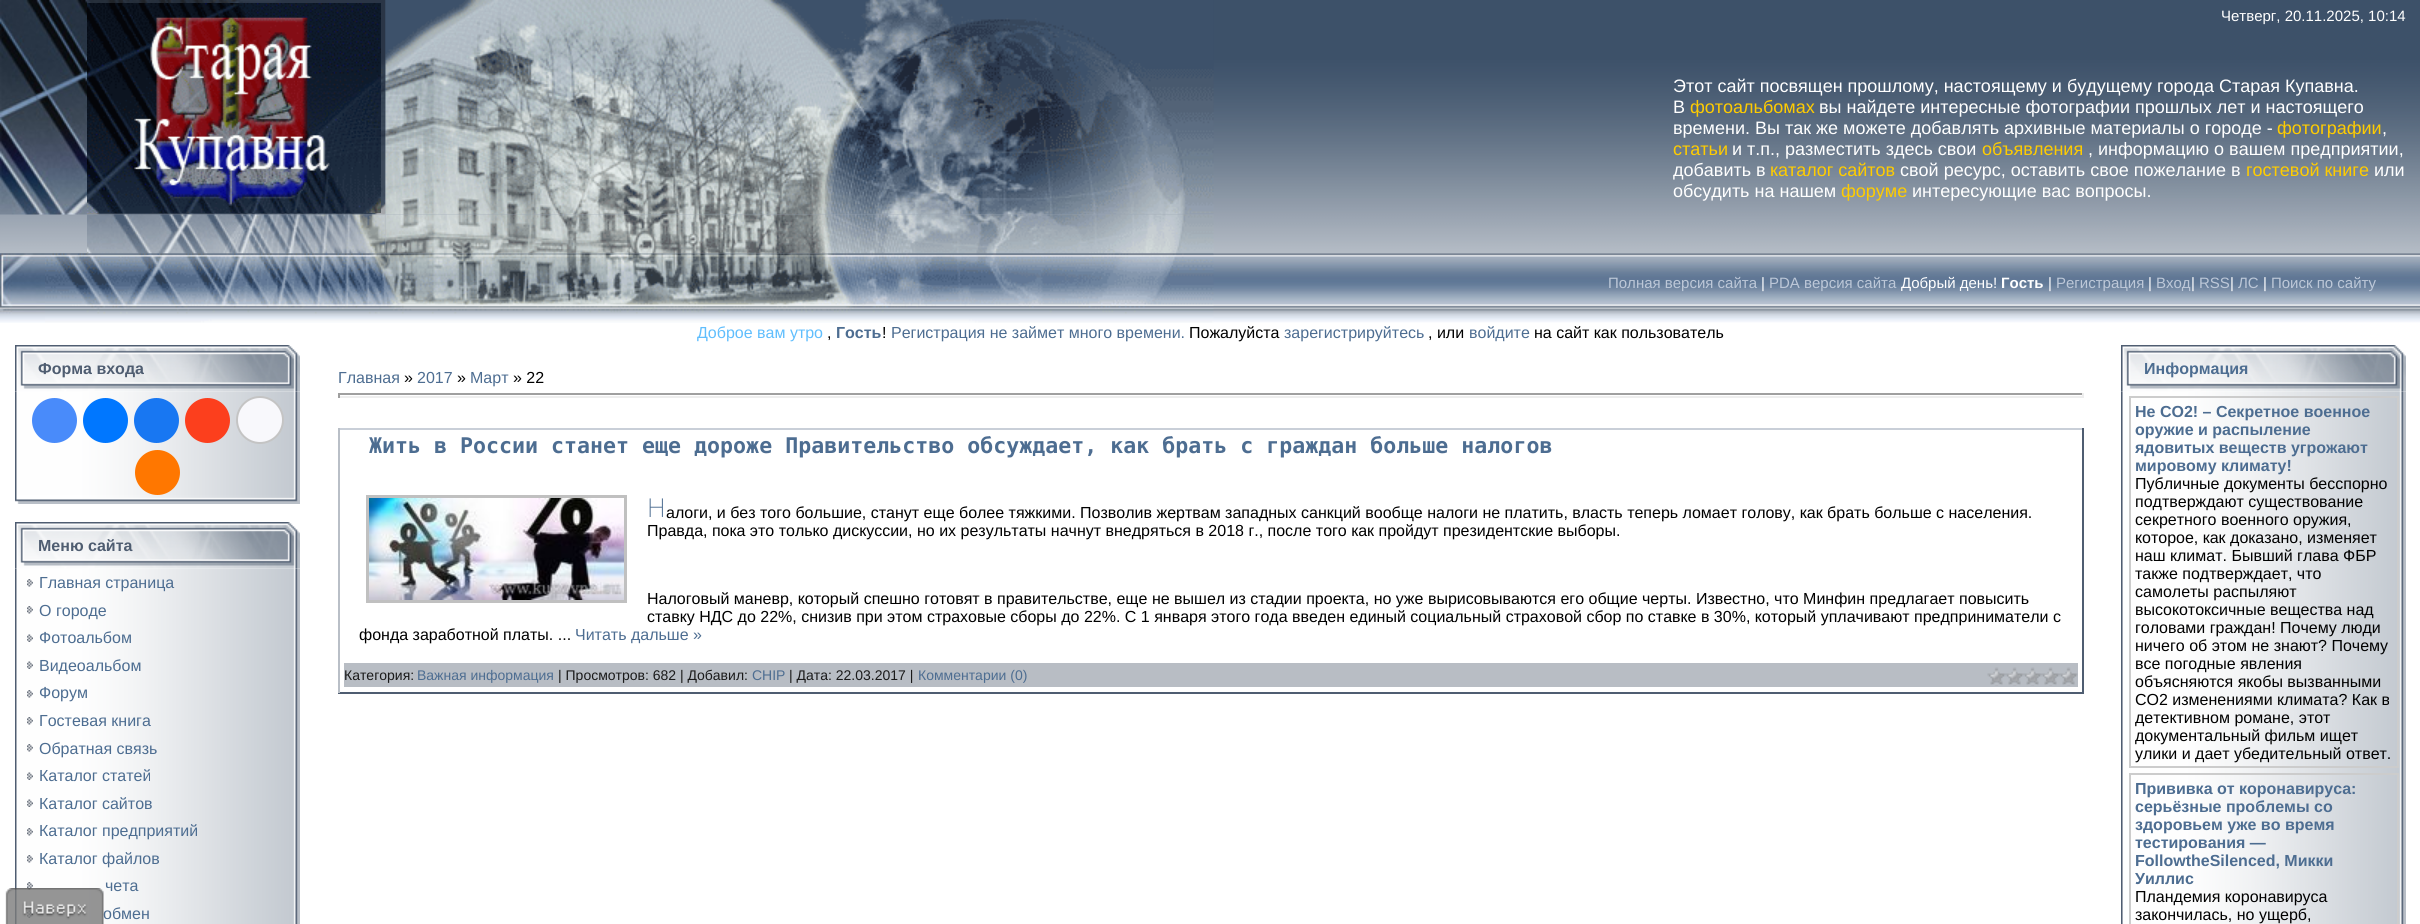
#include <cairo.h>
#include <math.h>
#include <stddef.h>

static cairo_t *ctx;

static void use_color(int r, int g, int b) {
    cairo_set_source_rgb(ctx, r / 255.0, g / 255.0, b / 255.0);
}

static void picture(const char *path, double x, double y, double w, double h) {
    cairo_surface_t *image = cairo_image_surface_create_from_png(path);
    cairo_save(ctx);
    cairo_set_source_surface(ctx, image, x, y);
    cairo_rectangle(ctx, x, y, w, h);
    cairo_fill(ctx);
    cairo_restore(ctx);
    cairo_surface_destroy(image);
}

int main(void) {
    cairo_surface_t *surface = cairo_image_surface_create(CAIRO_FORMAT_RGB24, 2420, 924);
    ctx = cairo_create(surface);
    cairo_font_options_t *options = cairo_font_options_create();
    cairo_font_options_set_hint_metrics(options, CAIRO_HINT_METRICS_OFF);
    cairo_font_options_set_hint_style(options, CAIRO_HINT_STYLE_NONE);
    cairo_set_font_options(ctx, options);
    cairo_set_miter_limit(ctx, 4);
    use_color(255, 255, 255);
    cairo_paint(ctx);
    picture("img1.png", 0, 0, 2420, 323);
    picture("img2.png", 0, 0, 87, 215);
    picture("img3.png", 87, 0, 299, 215);
    picture("img4.png", 87, 3, 294, 210);
    picture("img5.png", 385, 0, 829, 215);
    cairo_select_font_face(ctx, "Liberation Sans", CAIRO_FONT_SLANT_NORMAL, CAIRO_FONT_WEIGHT_NORMAL);
    cairo_set_font_size(ctx, 15);
    use_color(255, 255, 255);
    cairo_move_to(ctx, 2221, 21);
    cairo_show_text(ctx, "Четверг, 20.11.2025, 10:14");
    picture("img6.png", 87, 214, 299, 40);
    picture("img7.png", 385, 214, 829, 40);
    cairo_set_font_size(ctx, 18);
    cairo_move_to(ctx, 1673, 92);
    cairo_show_text(ctx, "Этот сайт посвящен прошлому, настоящему и будущему города Старая Купавна.");
    cairo_move_to(ctx, 1673, 113);
    cairo_show_text(ctx, "В");
    use_color(255, 204, 0);
    cairo_move_to(ctx, 1690, 113);
    cairo_show_text(ctx, "фотоальбомах");
    use_color(255, 255, 255);
    cairo_move_to(ctx, 1819, 113);
    cairo_show_text(ctx, "вы найдете интересные фотографии прошлых лет и настоящего");
    cairo_move_to(ctx, 1673, 134);
    cairo_show_text(ctx, "времени. Вы так же можете добавлять архивные материалы о городе -");
    use_color(255, 204, 0);
    cairo_move_to(ctx, 2277, 134);
    cairo_show_text(ctx, "фотографии");
    use_color(255, 255, 255);
    cairo_move_to(ctx, 2382, 134);
    cairo_show_text(ctx, ",");
    use_color(255, 204, 0);
    cairo_move_to(ctx, 1673, 155);
    cairo_show_text(ctx, "статьи");
    use_color(255, 255, 255);
    cairo_move_to(ctx, 1732, 155);
    cairo_show_text(ctx, "и т.п., разместить здесь свои");
    use_color(255, 204, 0);
    cairo_move_to(ctx, 1982, 155);
    cairo_show_text(ctx, "объявления");
    use_color(255, 255, 255);
    cairo_move_to(ctx, 2088, 155);
    cairo_show_text(ctx, ", информацию о вашем предприятии,");
    cairo_move_to(ctx, 1673, 176);
    cairo_show_text(ctx, "добавить в");
    use_color(255, 204, 0);
    cairo_move_to(ctx, 1770, 176);
    cairo_show_text(ctx, "каталог сайтов");
    use_color(255, 255, 255);
    cairo_move_to(ctx, 1900, 176);
    cairo_show_text(ctx, "свой ресурс, оставить свое пожелание в");
    use_color(255, 204, 0);
    cairo_move_to(ctx, 2246, 176);
    cairo_show_text(ctx, "гостевой книге");
    use_color(255, 255, 255);
    cairo_move_to(ctx, 2374, 176);
    cairo_show_text(ctx, "или");
    cairo_move_to(ctx, 1673, 197);
    cairo_show_text(ctx, "обсудить на нашем");
    use_color(255, 204, 0);
    cairo_move_to(ctx, 1841, 197);
    cairo_show_text(ctx, "форуме");
    use_color(255, 255, 255);
    cairo_move_to(ctx, 1912, 197);
    cairo_show_text(ctx, "интересующие вас вопросы.");
    picture("img8.png", 0, 253, 45, 70);
    picture("img9.png", 45, 253, 1169, 70);
    cairo_set_font_size(ctx, 15);
    use_color(189, 200, 216);
    cairo_move_to(ctx, 1608, 288);
    cairo_show_text(ctx, "Полная версия сайта");
    use_color(255, 255, 255);
    cairo_move_to(ctx, 1761, 288);
    cairo_show_text(ctx, "|");
    use_color(189, 200, 216);
    cairo_move_to(ctx, 1769, 288);
    cairo_show_text(ctx, "PDA версия сайта");
    use_color(255, 255, 255);
    cairo_move_to(ctx, 1901, 288);
    cairo_show_text(ctx, "Добрый день!");
    cairo_select_font_face(ctx, "Liberation Sans", CAIRO_FONT_SLANT_NORMAL, CAIRO_FONT_WEIGHT_BOLD);
    cairo_move_to(ctx, 2001, 288);
    cairo_show_text(ctx, "Гость");
    cairo_select_font_face(ctx, "Liberation Sans", CAIRO_FONT_SLANT_NORMAL, CAIRO_FONT_WEIGHT_NORMAL);
    cairo_move_to(ctx, 2048, 288);
    cairo_show_text(ctx, "|");
    use_color(189, 200, 216);
    cairo_move_to(ctx, 2056, 288);
    cairo_show_text(ctx, "Регистрация");
    use_color(255, 255, 255);
    cairo_move_to(ctx, 2148, 288);
    cairo_show_text(ctx, "|");
    use_color(189, 200, 216);
    cairo_move_to(ctx, 2156, 288);
    cairo_show_text(ctx, "Вход");
    use_color(255, 255, 255);
    cairo_move_to(ctx, 2191, 288);
    cairo_show_text(ctx, "|");
    use_color(189, 200, 216);
    cairo_move_to(ctx, 2199, 288);
    cairo_show_text(ctx, "RSS");
    use_color(255, 255, 255);
    cairo_move_to(ctx, 2230, 288);
    cairo_show_text(ctx, "|");
    use_color(189, 200, 216);
    cairo_move_to(ctx, 2238, 288);
    cairo_show_text(ctx, "ЛС");
    use_color(255, 255, 255);
    cairo_move_to(ctx, 2263, 288);
    cairo_show_text(ctx, "|");
    use_color(189, 200, 216);
    cairo_move_to(ctx, 2271, 288);
    cairo_show_text(ctx, "Поиск по сайту");
    cairo_set_font_size(ctx, 16);
    use_color(96, 190, 253);
    cairo_move_to(ctx, 697, 338);
    cairo_show_text(ctx, "Доброе вам утро");
    use_color(0, 0, 0);
    cairo_move_to(ctx, 827, 338);
    cairo_show_text(ctx, ",");
    cairo_select_font_face(ctx, "Liberation Sans", CAIRO_FONT_SLANT_NORMAL, CAIRO_FONT_WEIGHT_BOLD);
    use_color(77, 109, 145);
    cairo_move_to(ctx, 836, 338);
    cairo_show_text(ctx, "Гость");
    cairo_select_font_face(ctx, "Liberation Sans", CAIRO_FONT_SLANT_NORMAL, CAIRO_FONT_WEIGHT_NORMAL);
    use_color(0, 0, 0);
    cairo_move_to(ctx, 882, 338);
    cairo_show_text(ctx, "!");
    use_color(77, 109, 145);
    cairo_move_to(ctx, 891, 338);
    cairo_show_text(ctx, "Регистрация не займет много времени.");
    use_color(0, 0, 0);
    cairo_move_to(ctx, 1189, 338);
    cairo_show_text(ctx, "Пожалуйста");
    use_color(77, 109, 145);
    cairo_move_to(ctx, 1284, 338);
    cairo_show_text(ctx, "зарегистрируйтесь");
    use_color(0, 0, 0);
    cairo_move_to(ctx, 1428, 338);
    cairo_show_text(ctx, ", или");
    use_color(77, 109, 145);
    cairo_move_to(ctx, 1469, 338);
    cairo_show_text(ctx, "войдите");
    use_color(0, 0, 0);
    cairo_move_to(ctx, 1534, 338);
    cairo_show_text(ctx, "на сайт как пользователь");
    picture("img10.png", 15, 345, 285, 47);
    cairo_select_font_face(ctx, "Liberation Sans", CAIRO_FONT_SLANT_NORMAL, CAIRO_FONT_WEIGHT_BOLD);
    use_color(79, 93, 113);
    cairo_move_to(ctx, 38, 374);
    cairo_show_text(ctx, "Форма входа");
    picture("img11.png", 15, 391, 285, 104);
    use_color(73, 139, 250);
    cairo_arc(ctx, 54.5, 420.5, 22.5, 0, 2 * M_PI);
    cairo_fill(ctx);
    use_color(0, 119, 255);
    cairo_arc(ctx, 105.5, 420.5, 22.5, 0, 2 * M_PI);
    cairo_fill(ctx);
    use_color(24, 119, 242);
    cairo_arc(ctx, 156.5, 420.5, 22.5, 0, 2 * M_PI);
    cairo_fill(ctx);
    use_color(252, 63, 29);
    cairo_arc(ctx, 207.5, 420.5, 22.5, 0, 2 * M_PI);
    cairo_fill(ctx);
    use_color(248, 248, 252);
    cairo_arc(ctx, 260, 420, 23, 0, 2 * M_PI);
    cairo_fill_preserve(ctx);
    use_color(196, 196, 196);
    cairo_stroke(ctx);
    use_color(255, 119, 0);
    cairo_arc(ctx, 157.5, 472.5, 22.5, 0, 2 * M_PI);
    cairo_fill(ctx);
    picture("img12.png", 15, 495, 285, 9);
    picture("img10.png", 15, 522, 285, 47);
    use_color(79, 93, 113);
    cairo_move_to(ctx, 38, 551);
    cairo_show_text(ctx, "Меню сайта");
    picture("img13.png", 15, 568, 285, 356);
    picture("img14.png", 27, 579, 6, 8);
    cairo_select_font_face(ctx, "Liberation Sans", CAIRO_FONT_SLANT_NORMAL, CAIRO_FONT_WEIGHT_NORMAL);
    use_color(77, 109, 145);
    cairo_move_to(ctx, 39, 588);
    cairo_show_text(ctx, "Главная страница");
    picture("img14.png", 27, 606, 6, 8);
    cairo_move_to(ctx, 39, 616);
    cairo_show_text(ctx, "О городе");
    picture("img15.png", 27, 634, 6, 8);
    cairo_move_to(ctx, 39, 643);
    cairo_show_text(ctx, "Фотоальбом");
    picture("img15.png", 27, 661, 6, 8);
    cairo_move_to(ctx, 39, 671);
    cairo_show_text(ctx, "Видеоальбом");
    picture("img14.png", 27, 690, 6, 8);
    cairo_move_to(ctx, 39, 698);
    cairo_show_text(ctx, "Форум");
    picture("img14.png", 27, 717, 6, 8);
    cairo_move_to(ctx, 39, 726);
    cairo_show_text(ctx, "Гостевая книга");
    picture("img14.png", 27, 744, 6, 8);
    cairo_move_to(ctx, 39, 754);
    cairo_show_text(ctx, "Обратная связь");
    picture("img15.png", 27, 772, 6, 8);
    cairo_move_to(ctx, 39, 781);
    cairo_show_text(ctx, "Каталог статей");
    picture("img15.png", 27, 799, 6, 8);
    cairo_move_to(ctx, 39, 809);
    cairo_show_text(ctx, "Каталог сайтов");
    picture("img14.png", 27, 828, 6, 8);
    cairo_move_to(ctx, 39, 836);
    cairo_show_text(ctx, "Каталог предприятий");
    picture("img14.png", 27, 855, 6, 8);
    cairo_move_to(ctx, 39, 864);
    cairo_show_text(ctx, "Каталог файлов");
    picture("img14.png", 27, 882, 6, 8);
    cairo_move_to(ctx, 105, 891);
    cairo_show_text(ctx, "чета");
    picture("img15.png", 27, 910, 6, 8);
    cairo_move_to(ctx, 103, 919);
    cairo_show_text(ctx, "обмен");
    cairo_move_to(ctx, 338, 383);
    cairo_show_text(ctx, "Главная");
    use_color(0, 0, 0);
    cairo_move_to(ctx, 404, 383);
    cairo_show_text(ctx, "»");
    use_color(77, 109, 145);
    cairo_move_to(ctx, 417, 383);
    cairo_show_text(ctx, "2017");
    use_color(0, 0, 0);
    cairo_move_to(ctx, 457, 383);
    cairo_show_text(ctx, "»");
    use_color(77, 109, 145);
    cairo_move_to(ctx, 470, 383);
    cairo_show_text(ctx, "Март");
    use_color(0, 0, 0);
    cairo_move_to(ctx, 513, 383);
    cairo_show_text(ctx, "» 22");
    use_color(159, 159, 159);
    cairo_rectangle(ctx, 338, 393, 1746, 2);
    cairo_fill(ctx);
    use_color(238, 238, 238);
    cairo_rectangle(ctx, 2082, 393, 2, 5);
    cairo_fill(ctx);
    cairo_rectangle(ctx, 338, 396, 1746, 2);
    cairo_fill(ctx);
    use_color(159, 159, 159);
    cairo_rectangle(ctx, 338, 393, 2, 5);
    cairo_fill(ctx);
    use_color(201, 207, 216);
    cairo_rectangle(ctx, 338, 428, 1746, 2);
    cairo_fill(ctx);
    use_color(79, 93, 113);
    cairo_rectangle(ctx, 2082, 428, 2, 265);
    cairo_fill(ctx);
    cairo_rectangle(ctx, 338, 692, 1746, 2);
    cairo_fill(ctx);
    use_color(185, 191, 199);
    cairo_rectangle(ctx, 338, 428, 2, 265);
    cairo_fill(ctx);
    cairo_select_font_face(ctx, "DejaVu Sans Mono", CAIRO_FONT_SLANT_NORMAL, CAIRO_FONT_WEIGHT_BOLD);
    cairo_set_font_size(ctx, 21.6);
    use_color(77, 109, 145);
    cairo_move_to(ctx, 369, 453);
    cairo_show_text(ctx, "Жить в России станет еще дороже Правительство обсуждает, как брать с граждан больше налогов");
    cairo_rectangle(ctx, 367.5, 496.5, 258, 105);
    use_color(192, 192, 192);
    cairo_set_line_width(ctx, 3);
    cairo_stroke(ctx);
    picture("img16.png", 369, 498, 255, 102);
    cairo_select_font_face(ctx, "Noto Sans ExtraLight", CAIRO_FONT_SLANT_NORMAL, CAIRO_FONT_WEIGHT_NORMAL);
    cairo_set_font_size(ctx, 26);
    use_color(77, 109, 145);
    cairo_move_to(ctx, 647, 517);
    cairo_show_text(ctx, "Н");
    cairo_select_font_face(ctx, "Liberation Sans", CAIRO_FONT_SLANT_NORMAL, CAIRO_FONT_WEIGHT_NORMAL);
    cairo_set_font_size(ctx, 16);
    use_color(0, 0, 0);
    cairo_move_to(ctx, 666, 518);
    cairo_show_text(ctx, "алоги, и без того большие, станут еще более тяжкими. Позволив жертвам западных санкций вообще налоги не платить, власть теперь ломает голову, как брать больше с населения.");
    cairo_move_to(ctx, 647, 536);
    cairo_show_text(ctx, "Правда, пока это только дискуссии, но их результаты начнут внедряться в 2018 г., после того как пройдут президентские выборы.");
    cairo_move_to(ctx, 647, 604);
    cairo_show_text(ctx, "Налоговый маневр, который спешно готовят в правительстве, еще не вышел из стадии проекта, но уже вырисовываются его общие черты. Известно, что Минфин предлагает повысить");
    cairo_move_to(ctx, 647, 622);
    cairo_show_text(ctx, "ставку НДС до 22%, снизив при этом страховые сборы до 22%. С 1 января этого года введен единый социальный страховой сбор по ставке в 30%, который уплачивают предприниматели с");
    cairo_move_to(ctx, 359, 640);
    cairo_show_text(ctx, "фонда заработной платы. ...");
    use_color(77, 109, 145);
    cairo_move_to(ctx, 575, 640);
    cairo_show_text(ctx, "Читать дальше »");
    use_color(184, 189, 196);
    cairo_rectangle(ctx, 344, 663, 1734, 24);
    cairo_fill(ctx);
    cairo_set_font_size(ctx, 14);
    use_color(26, 26, 26);
    cairo_move_to(ctx, 344, 680);
    cairo_show_text(ctx, "Категория:");
    use_color(77, 109, 145);
    cairo_move_to(ctx, 417, 680);
    cairo_show_text(ctx, "Важная информация");
    use_color(26, 26, 26);
    cairo_move_to(ctx, 558, 680);
    cairo_show_text(ctx, "| Просмотров: 682 | Добавил:");
    use_color(77, 109, 145);
    cairo_move_to(ctx, 752, 680);
    cairo_show_text(ctx, "CHIP");
    use_color(26, 26, 26);
    cairo_move_to(ctx, 789, 680);
    cairo_show_text(ctx, "| Дата: 22.03.2017 |");
    use_color(77, 109, 145);
    cairo_move_to(ctx, 918, 680);
    cairo_show_text(ctx, "Комментарии (0)");
    picture("img17.png", 1987, 667, 91, 19);
    picture("img18.png", 2121, 345, 285, 47);
    cairo_select_font_face(ctx, "Liberation Sans", CAIRO_FONT_SLANT_NORMAL, CAIRO_FONT_WEIGHT_BOLD);
    cairo_set_font_size(ctx, 16);
    cairo_move_to(ctx, 2144, 374);
    cairo_show_text(ctx, "Информация");
    picture("img19.png", 2121, 391, 285, 533);
    cairo_rectangle(ctx, 2130, 397, 268, 370);
    use_color(204, 204, 204);
    cairo_set_line_width(ctx, 2);
    cairo_stroke(ctx);
    use_color(77, 109, 145);
    cairo_move_to(ctx, 2135, 417);
    cairo_show_text(ctx, "Не CO2! – Секретное военное");
    cairo_move_to(ctx, 2135, 435);
    cairo_show_text(ctx, "оружие и распыление");
    cairo_move_to(ctx, 2135, 453);
    cairo_show_text(ctx, "ядовитых веществ угрожают");
    cairo_move_to(ctx, 2135, 471);
    cairo_show_text(ctx, "мировому климату!");
    cairo_select_font_face(ctx, "Liberation Sans", CAIRO_FONT_SLANT_NORMAL, CAIRO_FONT_WEIGHT_NORMAL);
    use_color(0, 0, 0);
    cairo_move_to(ctx, 2135, 489);
    cairo_show_text(ctx, "Публичные документы бесспорно");
    cairo_move_to(ctx, 2135, 507);
    cairo_show_text(ctx, "подтверждают существование");
    cairo_move_to(ctx, 2135, 525);
    cairo_show_text(ctx, "секретного военного оружия,");
    cairo_move_to(ctx, 2135, 543);
    cairo_show_text(ctx, "которое, как доказано, изменяет");
    cairo_move_to(ctx, 2135, 561);
    cairo_show_text(ctx, "наш климат. Бывший глава ФБР");
    cairo_move_to(ctx, 2135, 579);
    cairo_show_text(ctx, "также подтверждает, что");
    cairo_move_to(ctx, 2135, 597);
    cairo_show_text(ctx, "самолеты распыляют");
    cairo_move_to(ctx, 2135, 615);
    cairo_show_text(ctx, "высокотоксичные вещества над");
    cairo_move_to(ctx, 2135, 633);
    cairo_show_text(ctx, "головами граждан! Почему люди");
    cairo_move_to(ctx, 2135, 651);
    cairo_show_text(ctx, "ничего об этом не знают? Почему");
    cairo_move_to(ctx, 2135, 669);
    cairo_show_text(ctx, "все погодные явления");
    cairo_move_to(ctx, 2135, 687);
    cairo_show_text(ctx, "объясняются якобы вызванными");
    cairo_move_to(ctx, 2135, 705);
    cairo_show_text(ctx, "CO2 изменениями климата? Как в");
    cairo_move_to(ctx, 2135, 723);
    cairo_show_text(ctx, "детективном романе, этот");
    cairo_move_to(ctx, 2135, 741);
    cairo_show_text(ctx, "документальный фильм ищет");
    cairo_move_to(ctx, 2135, 759);
    cairo_show_text(ctx, "улики и дает убедительный ответ.");
    cairo_rectangle(ctx, 2130, 774, 268, 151);
    use_color(204, 204, 204);
    cairo_stroke(ctx);
    cairo_select_font_face(ctx, "Liberation Sans", CAIRO_FONT_SLANT_NORMAL, CAIRO_FONT_WEIGHT_BOLD);
    use_color(77, 109, 145);
    cairo_move_to(ctx, 2135, 794);
    cairo_show_text(ctx, "Прививка от коронавируса:");
    cairo_move_to(ctx, 2135, 812);
    cairo_show_text(ctx, "серьёзные проблемы со");
    cairo_move_to(ctx, 2135, 830);
    cairo_show_text(ctx, "здоровьем уже во время");
    cairo_move_to(ctx, 2135, 848);
    cairo_show_text(ctx, "тестирования —");
    cairo_move_to(ctx, 2135, 866);
    cairo_show_text(ctx, "FollowtheSilenced, Микки");
    cairo_move_to(ctx, 2135, 884);
    cairo_show_text(ctx, "Уиллис");
    cairo_select_font_face(ctx, "Liberation Sans", CAIRO_FONT_SLANT_NORMAL, CAIRO_FONT_WEIGHT_NORMAL);
    use_color(0, 0, 0);
    cairo_move_to(ctx, 2135, 902);
    cairo_show_text(ctx, "Пландемия коронавируса");
    cairo_move_to(ctx, 2135, 920);
    cairo_show_text(ctx, "закончилась, но ущерб,");
    picture("img20.png", 5, 888, 99, 36);
    cairo_surface_write_to_png(surface, "result.png");
    cairo_font_options_destroy(options);
    cairo_destroy(ctx);
    cairo_surface_destroy(surface);
    return 0;
}
